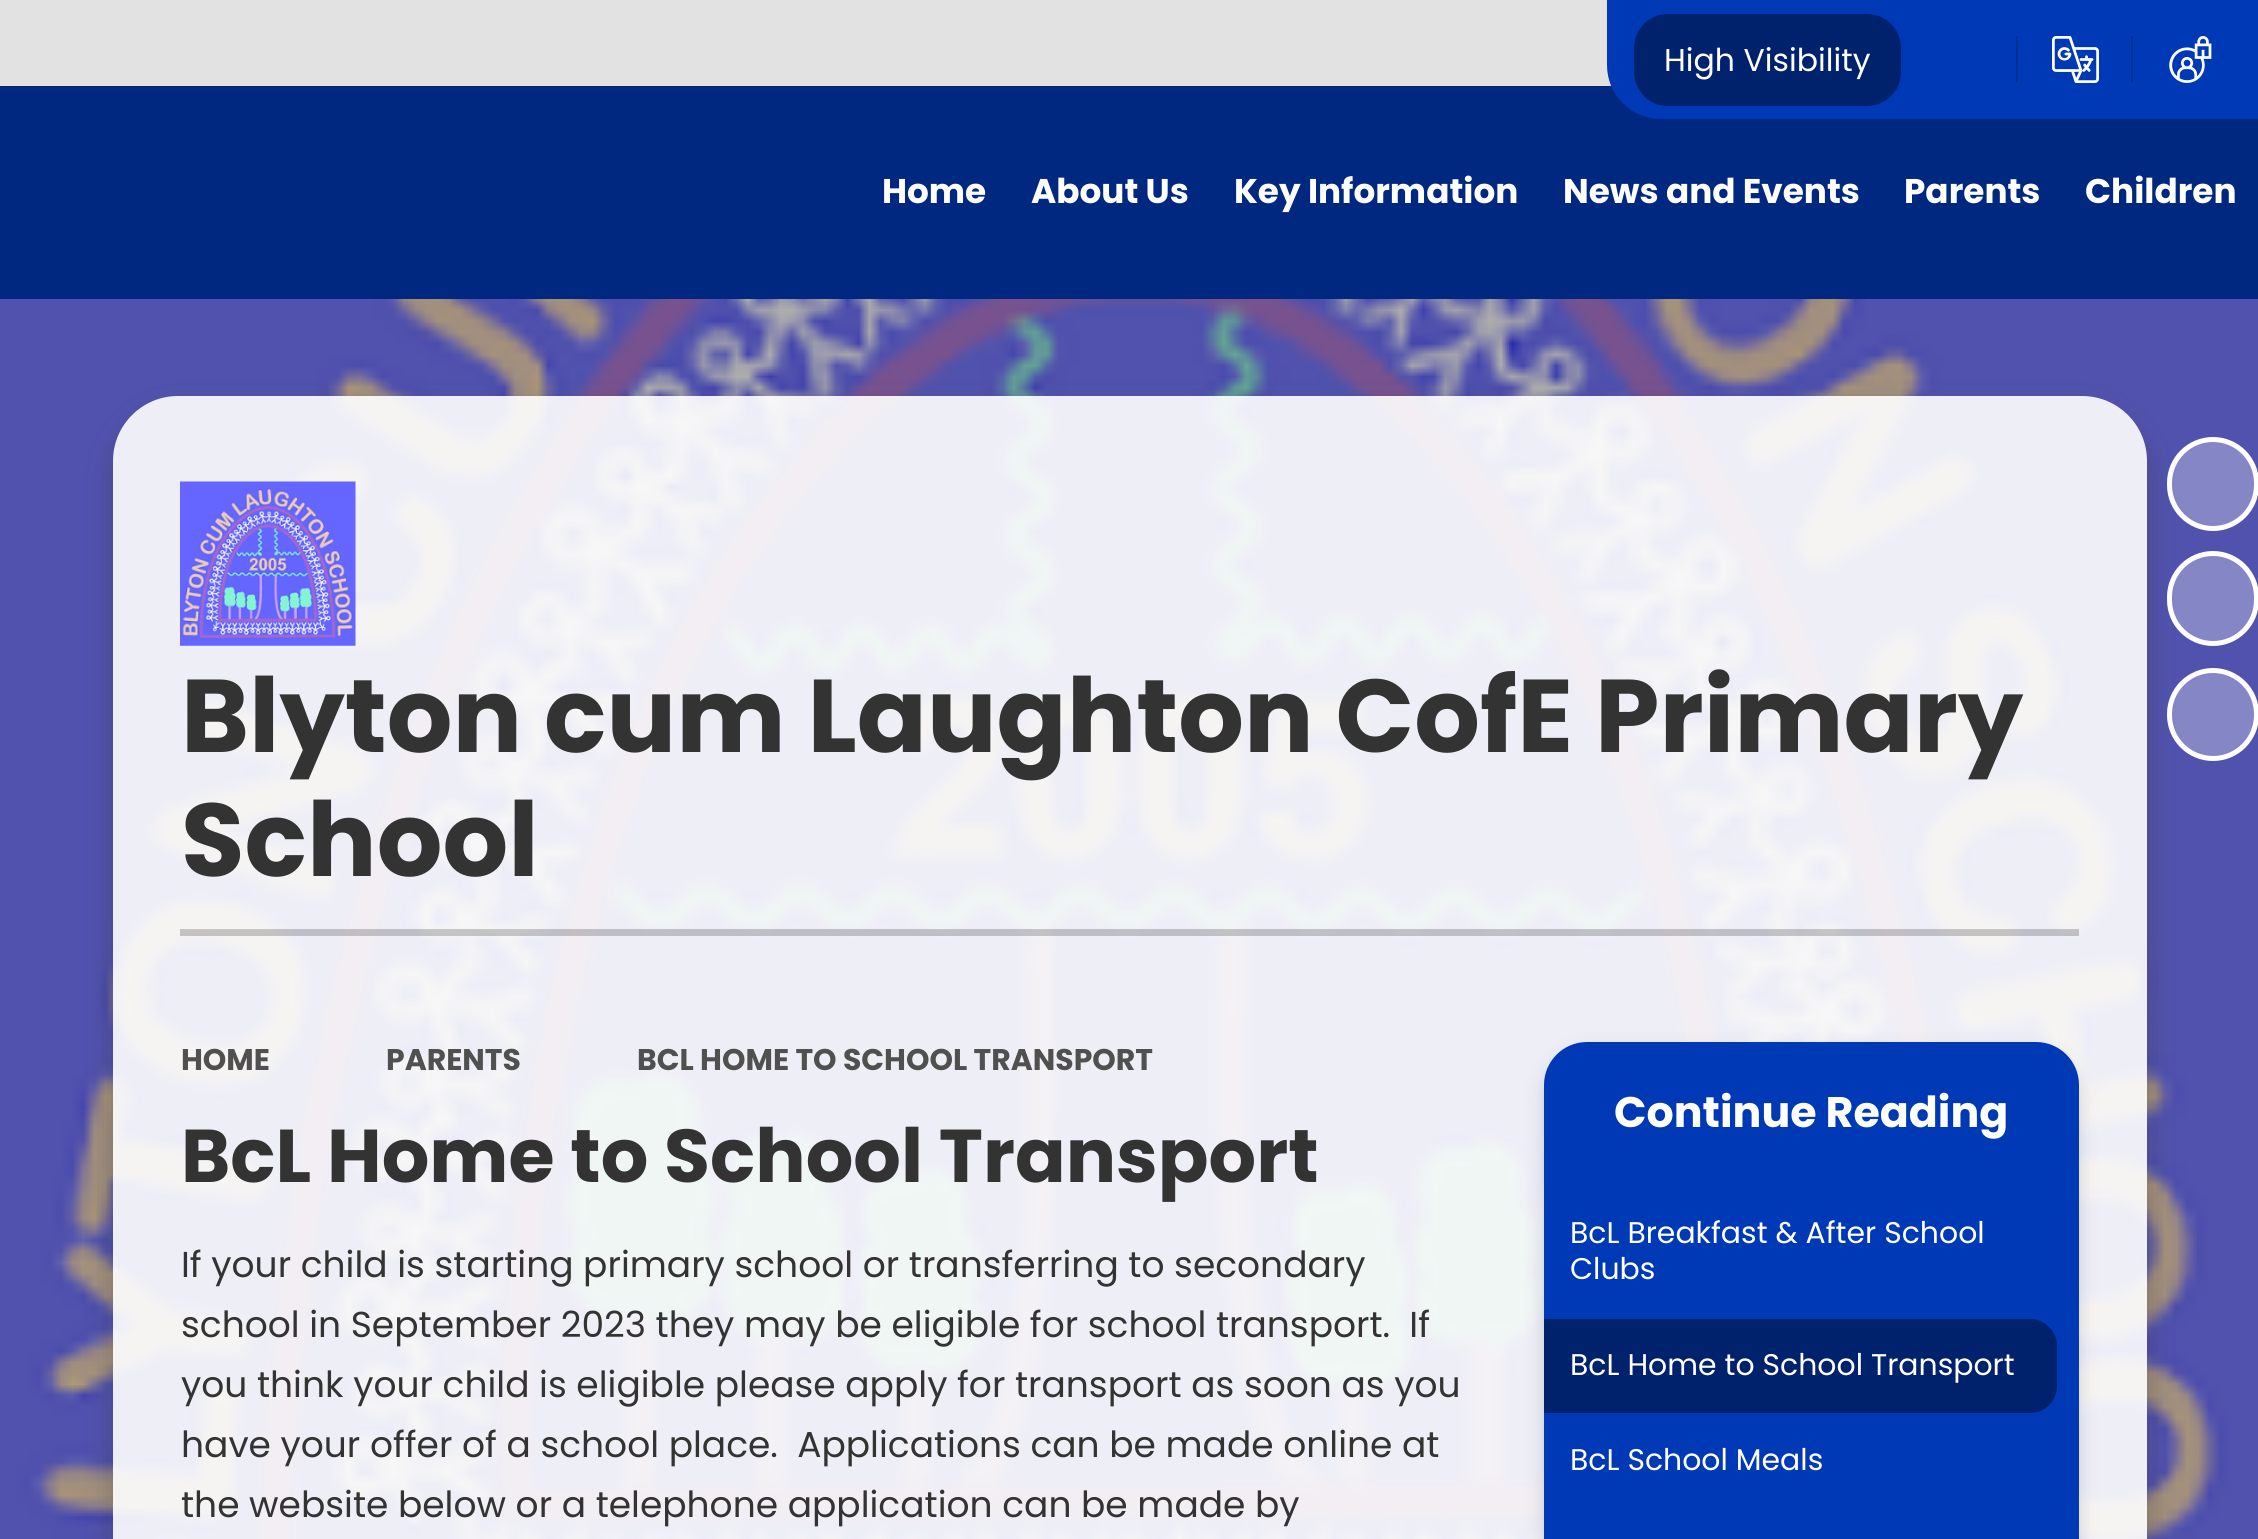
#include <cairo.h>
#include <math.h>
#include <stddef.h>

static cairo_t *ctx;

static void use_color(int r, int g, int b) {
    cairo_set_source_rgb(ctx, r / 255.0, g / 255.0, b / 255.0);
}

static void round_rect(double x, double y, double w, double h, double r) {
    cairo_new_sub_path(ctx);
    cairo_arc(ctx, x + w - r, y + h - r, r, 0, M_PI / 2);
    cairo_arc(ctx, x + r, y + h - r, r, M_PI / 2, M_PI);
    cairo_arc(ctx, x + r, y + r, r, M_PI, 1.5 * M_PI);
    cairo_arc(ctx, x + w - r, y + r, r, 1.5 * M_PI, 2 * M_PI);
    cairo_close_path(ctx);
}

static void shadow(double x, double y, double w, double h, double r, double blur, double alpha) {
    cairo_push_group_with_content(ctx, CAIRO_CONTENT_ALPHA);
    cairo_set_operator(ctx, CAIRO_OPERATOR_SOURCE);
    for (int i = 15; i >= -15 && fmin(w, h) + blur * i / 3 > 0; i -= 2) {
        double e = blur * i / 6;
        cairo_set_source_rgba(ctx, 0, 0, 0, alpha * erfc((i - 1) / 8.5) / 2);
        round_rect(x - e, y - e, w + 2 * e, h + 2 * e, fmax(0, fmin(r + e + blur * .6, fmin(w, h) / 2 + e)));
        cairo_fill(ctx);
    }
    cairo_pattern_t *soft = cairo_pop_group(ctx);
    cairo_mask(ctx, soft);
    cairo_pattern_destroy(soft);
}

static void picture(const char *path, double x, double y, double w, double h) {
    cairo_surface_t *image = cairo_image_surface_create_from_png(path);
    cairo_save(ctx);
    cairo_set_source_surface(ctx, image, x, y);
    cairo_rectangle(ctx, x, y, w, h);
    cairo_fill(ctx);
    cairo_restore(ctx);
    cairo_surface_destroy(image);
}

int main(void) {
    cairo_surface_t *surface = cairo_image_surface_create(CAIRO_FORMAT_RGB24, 2258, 1539);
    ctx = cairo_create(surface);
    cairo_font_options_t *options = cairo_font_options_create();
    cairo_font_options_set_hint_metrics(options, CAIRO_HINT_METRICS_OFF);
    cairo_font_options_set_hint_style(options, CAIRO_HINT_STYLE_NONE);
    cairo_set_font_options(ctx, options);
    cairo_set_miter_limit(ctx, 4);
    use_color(255, 255, 255);
    cairo_paint(ctx);
    use_color(226, 226, 226);
    cairo_rectangle(ctx, 0, 0, 1612, 86);
    cairo_fill(ctx);
    use_color(0, 40, 128);
    cairo_rectangle(ctx, 0, 86, 2258, 213);
    cairo_fill(ctx);
    use_color(0, 57, 182);
    cairo_new_path(ctx);
    cairo_move_to(ctx, 1607, 0);
    cairo_line_to(ctx, 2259, 0);
    cairo_line_to(ctx, 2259, 119);
    cairo_line_to(ctx, 1661, 119);
    cairo_curve_to(ctx, 1631, 119, 1607, 95, 1607, 65);
    cairo_close_path(ctx);
    cairo_fill(ctx);
    use_color(0, 34, 109);
    round_rect(1634, 14, 267, 92, 34);
    cairo_fill(ctx);
    cairo_select_font_face(ctx, "Poppins", CAIRO_FONT_SLANT_NORMAL, CAIRO_FONT_WEIGHT_NORMAL);
    cairo_set_font_size(ctx, 31.5);
    use_color(255, 255, 255);
    cairo_move_to(ctx, 1664, 71);
    cairo_show_text(ctx, "High Visibility");
    use_color(0, 46, 146);
    cairo_rectangle(ctx, 2016, 36, 2, 47);
    cairo_fill(ctx);
    picture("img1.png", 2052, 36, 47, 47);
    cairo_rectangle(ctx, 2131, 36, 2, 47);
    cairo_fill(ctx);
    picture("img2.png", 2169, 36, 43, 47);
    cairo_select_font_face(ctx, "Poppins", CAIRO_FONT_SLANT_NORMAL, CAIRO_FONT_WEIGHT_BOLD);
    cairo_set_font_size(ctx, 34.25);
    use_color(255, 255, 255);
    cairo_move_to(ctx, 882, 203);
    cairo_show_text(ctx, "Home");
    cairo_move_to(ctx, 1031, 203);
    cairo_show_text(ctx, "About Us");
    cairo_move_to(ctx, 1234, 203);
    cairo_show_text(ctx, "Key Information");
    cairo_move_to(ctx, 1563, 203);
    cairo_show_text(ctx, "News and Events");
    cairo_move_to(ctx, 1904, 203);
    cairo_show_text(ctx, "Parents");
    cairo_move_to(ctx, 2085, 203);
    cairo_show_text(ctx, "Children");
    picture("img3.png", 0, 299, 2258, 1240);
    cairo_save(ctx);
    cairo_set_fill_rule(ctx, CAIRO_FILL_RULE_EVEN_ODD);
    cairo_new_path(ctx);
    cairo_move_to(ctx, 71, 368);
    cairo_line_to(ctx, 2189, 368);
    cairo_line_to(ctx, 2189, 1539);
    cairo_line_to(ctx, 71, 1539);
    cairo_close_path(ctx);
    cairo_move_to(ctx, 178, 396);
    cairo_line_to(ctx, 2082, 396);
    cairo_curve_to(ctx, 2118, 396, 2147, 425, 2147, 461);
    cairo_line_to(ctx, 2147, 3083);
    cairo_curve_to(ctx, 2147, 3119, 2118, 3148, 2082, 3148);
    cairo_line_to(ctx, 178, 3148);
    cairo_curve_to(ctx, 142, 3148, 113, 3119, 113, 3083);
    cairo_line_to(ctx, 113, 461);
    cairo_curve_to(ctx, 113, 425, 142, 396, 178, 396);
    cairo_close_path(ctx);
    cairo_clip(ctx);
    use_color(51, 51, 51);
    shadow(113, 410, 2034, 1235, 65, 13.5, 0.35);
    cairo_restore(ctx);
    cairo_set_source_rgba(ctx, 1, 1, 1, 0.3);
    round_rect(2169.5, 439.5, 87, 89, 43.5);
    cairo_fill_preserve(ctx);
    use_color(255, 255, 255);
    cairo_set_line_width(ctx, 5);
    cairo_stroke(ctx);
    cairo_set_source_rgba(ctx, 1, 1, 1, 0.3);
    round_rect(2169.5, 553.5, 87, 90, 43.5);
    cairo_fill_preserve(ctx);
    use_color(255, 255, 255);
    cairo_stroke(ctx);
    cairo_set_source_rgba(ctx, 1, 1, 1, 0.3);
    round_rect(2169.5, 670.5, 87, 88, 43.5);
    cairo_fill_preserve(ctx);
    use_color(255, 255, 255);
    cairo_stroke(ctx);
    cairo_set_source_rgba(ctx, 1, 1, 1, 0.9);
    round_rect(113, 396, 2034, 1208, 65);
    cairo_fill(ctx);
    picture("img4.png", 180, 481, 176, 165);
    cairo_set_font_size(ctx, 103.3);
    use_color(51, 51, 51);
    cairo_move_to(ctx, 181, 752);
    cairo_show_text(ctx, "Blyton cum Laughton CofE Primary");
    cairo_move_to(ctx, 181, 876);
    cairo_show_text(ctx, "School");
    cairo_set_source_rgba(ctx, 0, 0, 0, 0.2);
    cairo_rectangle(ctx, 180, 929, 1899, 7);
    cairo_fill(ctx);
    cairo_set_font_size(ctx, 29.9);
    use_color(80, 80, 80);
    cairo_move_to(ctx, 181, 1070);
    cairo_show_text(ctx, "HOME");
    cairo_move_to(ctx, 386, 1070);
    cairo_show_text(ctx, "PARENTS");
    cairo_move_to(ctx, 637, 1070);
    cairo_show_text(ctx, "BCL HOME TO SCHOOL TRANSPORT");
    cairo_set_font_size(ctx, 74.75);
    use_color(51, 51, 51);
    cairo_move_to(ctx, 181, 1182);
    cairo_show_text(ctx, "BcL Home to School Transport");
    cairo_select_font_face(ctx, "Poppins", CAIRO_FONT_SLANT_NORMAL, CAIRO_FONT_WEIGHT_NORMAL);
    cairo_set_font_size(ctx, 36);
    cairo_move_to(ctx, 181, 1277);
    cairo_show_text(ctx, "If your child is starting primary school or transferring to secondary");
    cairo_move_to(ctx, 181, 1337);
    cairo_show_text(ctx, "school in September 2023 they may be eligible for school transport.  If");
    cairo_move_to(ctx, 181, 1397);
    cairo_show_text(ctx, "you think your child is eligible please apply for transport as soon as you");
    cairo_move_to(ctx, 181, 1457);
    cairo_show_text(ctx, "have your offer of a school place.  Applications can be made online at");
    cairo_move_to(ctx, 181, 1517);
    cairo_show_text(ctx, "the website below or a telephone application can be made by");
    use_color(51, 51, 51);
    shadow(1544, 1051, 535, 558, 43, 9, 0.2);
    use_color(0, 57, 182);
    round_rect(1544, 1042, 535, 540, 43);
    cairo_fill(ctx);
    cairo_select_font_face(ctx, "Poppins", CAIRO_FONT_SLANT_NORMAL, CAIRO_FONT_WEIGHT_BOLD);
    cairo_set_font_size(ctx, 42.75);
    use_color(255, 255, 255);
    cairo_move_to(ctx, 1614, 1127);
    cairo_show_text(ctx, "Continue Reading");
    cairo_select_font_face(ctx, "Poppins", CAIRO_FONT_SLANT_NORMAL, CAIRO_FONT_WEIGHT_NORMAL);
    cairo_set_font_size(ctx, 29.9);
    cairo_move_to(ctx, 1570, 1243);
    cairo_show_text(ctx, "BcL Breakfast & After School");
    cairo_move_to(ctx, 1570, 1279);
    cairo_show_text(ctx, "Clubs");
    use_color(0, 34, 109);
    cairo_new_path(ctx);
    cairo_move_to(ctx, 1544, 1319);
    cairo_line_to(ctx, 2030, 1319);
    cairo_curve_to(ctx, 2045, 1319, 2057, 1331, 2057, 1346);
    cairo_line_to(ctx, 2057, 1386);
    cairo_curve_to(ctx, 2057, 1401, 2045, 1413, 2030, 1413);
    cairo_line_to(ctx, 1544, 1413);
    cairo_close_path(ctx);
    cairo_fill(ctx);
    use_color(255, 255, 255);
    cairo_move_to(ctx, 1570, 1375);
    cairo_show_text(ctx, "BcL Home to School Transport");
    cairo_move_to(ctx, 1570, 1470);
    cairo_show_text(ctx, "BcL School Meals");
    cairo_surface_write_to_png(surface, "result.png");
    cairo_font_options_destroy(options);
    cairo_destroy(ctx);
    cairo_surface_destroy(surface);
    return 0;
}
